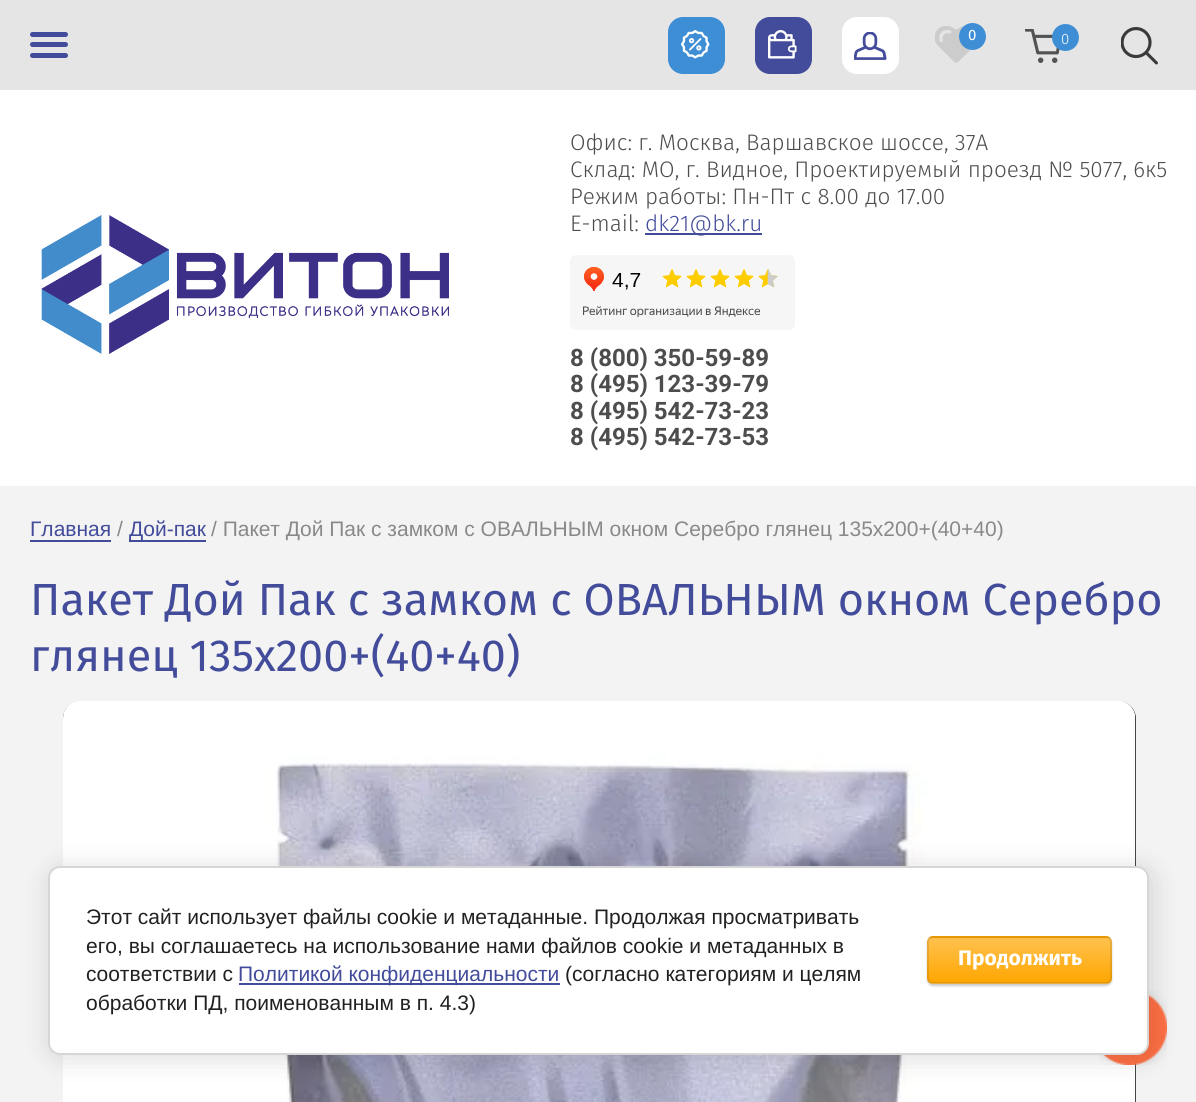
#include <cairo.h>
#include <math.h>
#include <stddef.h>

static cairo_t *ctx;

static void use_color(int r, int g, int b) {
    cairo_set_source_rgb(ctx, r / 255.0, g / 255.0, b / 255.0);
}

static void round_rect(double x, double y, double w, double h, double r) {
    cairo_new_sub_path(ctx);
    cairo_arc(ctx, x + w - r, y + h - r, r, 0, M_PI / 2);
    cairo_arc(ctx, x + r, y + h - r, r, M_PI / 2, M_PI);
    cairo_arc(ctx, x + r, y + r, r, M_PI, 1.5 * M_PI);
    cairo_arc(ctx, x + w - r, y + r, r, 1.5 * M_PI, 2 * M_PI);
    cairo_close_path(ctx);
}

static void shadow(double x, double y, double w, double h, double r, double blur, double alpha) {
    cairo_push_group_with_content(ctx, CAIRO_CONTENT_ALPHA);
    cairo_set_operator(ctx, CAIRO_OPERATOR_SOURCE);
    for (int i = 15; i >= -15 && fmin(w, h) + blur * i / 3 > 0; i -= 2) {
        double e = blur * i / 6;
        cairo_set_source_rgba(ctx, 0, 0, 0, alpha * erfc((i - 1) / 8.5) / 2);
        round_rect(x - e, y - e, w + 2 * e, h + 2 * e, fmax(0, fmin(r + e + blur * .6, fmin(w, h) / 2 + e)));
        cairo_fill(ctx);
    }
    cairo_pattern_t *soft = cairo_pop_group(ctx);
    cairo_mask(ctx, soft);
    cairo_pattern_destroy(soft);
}

static void picture(const char *path, double x, double y, double w, double h) {
    cairo_surface_t *image = cairo_image_surface_create_from_png(path);
    cairo_save(ctx);
    cairo_set_source_surface(ctx, image, x, y);
    cairo_rectangle(ctx, x, y, w, h);
    cairo_fill(ctx);
    cairo_restore(ctx);
    cairo_surface_destroy(image);
}

int main(void) {
    cairo_surface_t *surface = cairo_image_surface_create(CAIRO_FORMAT_RGB24, 1196, 1102);
    ctx = cairo_create(surface);
    cairo_font_options_t *options = cairo_font_options_create();
    cairo_font_options_set_hint_metrics(options, CAIRO_HINT_METRICS_OFF);
    cairo_font_options_set_hint_style(options, CAIRO_HINT_STYLE_NONE);
    cairo_set_font_options(ctx, options);
    cairo_set_miter_limit(ctx, 4);
    cairo_pattern_t *gradient;
    use_color(243, 243, 243);
    cairo_paint(ctx);
    use_color(255, 255, 255);
    cairo_rectangle(ctx, 0, 90, 1196, 396);
    cairo_fill(ctx);
    use_color(229, 229, 229);
    cairo_rectangle(ctx, 0, 0, 1196, 90);
    cairo_fill(ctx);
    use_color(66, 76, 154);
    round_rect(30, 32, 38, 5, 2.5);
    cairo_fill(ctx);
    round_rect(30, 42, 38, 5, 2.5);
    cairo_fill(ctx);
    round_rect(30, 53, 38, 5, 2.5);
    cairo_fill(ctx);
    use_color(62, 142, 213);
    round_rect(668, 17, 57, 57, 15);
    cairo_fill(ctx);
    picture("img1.png", 681, 30, 29, 29);
    use_color(66, 76, 154);
    round_rect(755, 17, 57, 57, 15);
    cairo_fill(ctx);
    picture("img2.png", 768, 30, 29, 29);
    use_color(255, 255, 255);
    round_rect(842, 17, 57, 57, 15);
    cairo_fill(ctx);
    picture("img3.png", 854, 32, 33, 28);
    picture("img4.png", 935, 26, 37, 37);
    use_color(62, 142, 213);
    cairo_arc(ctx, 972.5, 36.5, 13.5, 0, 2 * M_PI);
    cairo_fill(ctx);
    cairo_select_font_face(ctx, "Fira Sans", CAIRO_FONT_SLANT_NORMAL, CAIRO_FONT_WEIGHT_NORMAL);
    cairo_set_font_size(ctx, 15);
    use_color(255, 255, 255);
    cairo_move_to(ctx, 968, 40);
    cairo_show_text(ctx, "0");
    picture("img5.png", 1025, 29, 35, 34);
    use_color(62, 142, 213);
    cairo_arc(ctx, 1065.5, 37.5, 13.5, 0, 2 * M_PI);
    cairo_fill(ctx);
    cairo_select_font_face(ctx, "Fira Sans Light", CAIRO_FONT_SLANT_NORMAL, CAIRO_FONT_WEIGHT_NORMAL);
    use_color(255, 255, 255);
    cairo_move_to(ctx, 1061, 44);
    cairo_show_text(ctx, "0");
    picture("img6.png", 1121, 27, 37, 38);
    picture("img7.png", 41, 215, 408, 139);
    cairo_set_font_size(ctx, 22.5);
    use_color(77, 77, 77);
    cairo_move_to(ctx, 570, 150);
    cairo_show_text(ctx, "Офис: г. Москва, Варшавское шоссе, 37А");
    cairo_move_to(ctx, 570, 177);
    cairo_show_text(ctx, "Склад: МО, г. Видное, Проектируемый проезд № 5077, 6к5");
    cairo_move_to(ctx, 570, 204);
    cairo_show_text(ctx, "Режим работы: Пн-Пт с 8.00 до 17.00");
    cairo_move_to(ctx, 570, 231);
    cairo_show_text(ctx, "E-mail:");
    use_color(66, 76, 154);
    cairo_rectangle(ctx, 645, 233, 117, 2);
    cairo_fill(ctx);
    cairo_move_to(ctx, 645, 231);
    cairo_show_text(ctx, "dk21@bk.ru");
    picture("img8.png", 570, 255, 225, 75);
    cairo_select_font_face(ctx, "Roboto", CAIRO_FONT_SLANT_NORMAL, CAIRO_FONT_WEIGHT_BOLD);
    cairo_set_font_size(ctx, 24);
    use_color(77, 77, 77);
    cairo_move_to(ctx, 570, 366);
    cairo_show_text(ctx, "8 (800) 350-59-89");
    cairo_move_to(ctx, 570, 392);
    cairo_show_text(ctx, "8 (495) 123-39-79");
    cairo_move_to(ctx, 570, 419);
    cairo_show_text(ctx, "8 (495) 542-73-23");
    cairo_move_to(ctx, 570, 445);
    cairo_show_text(ctx, "8 (495) 542-73-53");
    cairo_select_font_face(ctx, "Liberation Sans", CAIRO_FONT_SLANT_NORMAL, CAIRO_FONT_WEIGHT_NORMAL);
    cairo_set_font_size(ctx, 21);
    use_color(66, 76, 154);
    cairo_move_to(ctx, 30, 536);
    cairo_show_text(ctx, "Главная");
    cairo_rectangle(ctx, 30, 540, 81, 2);
    cairo_fill(ctx);
    use_color(137, 137, 137);
    cairo_move_to(ctx, 117, 536);
    cairo_show_text(ctx, "/");
    use_color(66, 76, 154);
    cairo_rectangle(ctx, 129, 540, 77, 2);
    cairo_fill(ctx);
    cairo_move_to(ctx, 129, 536);
    cairo_show_text(ctx, "Дой-пак");
    use_color(137, 137, 137);
    cairo_move_to(ctx, 211, 536);
    cairo_show_text(ctx, "/ Пакет Дой Пак с замком с ОВАЛЬНЫМ окном Серебро глянец 135х200+(40+40)");
    cairo_select_font_face(ctx, "Fira Sans", CAIRO_FONT_SLANT_NORMAL, CAIRO_FONT_WEIGHT_NORMAL);
    cairo_set_font_size(ctx, 45);
    use_color(66, 76, 154);
    cairo_move_to(ctx, 30, 615);
    cairo_show_text(ctx, "Пакет Дой Пак с замком с ОВАЛЬНЫМ окном Серебро");
    cairo_move_to(ctx, 30, 671);
    cairo_show_text(ctx, "глянец 135х200+(40+40)");
    use_color(8, 8, 8);
    round_rect(63, 701, 1073, 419, 18);
    cairo_fill(ctx);
    picture("img9.png", 63, 701, 1073, 401);
    picture("img10.png", 1099, 990, 68, 75);
    use_color(0, 0, 0);
    shadow(51, 869, 1101, 189, 12, 13.5, 0.14);
    use_color(255, 255, 255);
    round_rect(49, 867, 1099, 187, 11);
    cairo_fill_preserve(ctx);
    use_color(214, 214, 214);
    cairo_stroke(ctx);
    cairo_select_font_face(ctx, "Liberation Sans", CAIRO_FONT_SLANT_NORMAL, CAIRO_FONT_WEIGHT_NORMAL);
    cairo_set_font_size(ctx, 21);
    use_color(33, 33, 33);
    cairo_move_to(ctx, 86, 924);
    cairo_show_text(ctx, "Этот сайт использует файлы cookie и метаданные. Продолжая просматривать");
    cairo_move_to(ctx, 86, 953);
    cairo_show_text(ctx, "его, вы соглашаетесь на использование нами файлов cookie и метаданных в");
    cairo_move_to(ctx, 86, 981);
    cairo_show_text(ctx, "соответствии с");
    use_color(66, 76, 154);
    cairo_rectangle(ctx, 239, 983, 321, 2);
    cairo_fill(ctx);
    cairo_move_to(ctx, 238, 981);
    cairo_show_text(ctx, "Политикой конфиденциальности");
    use_color(33, 33, 33);
    cairo_move_to(ctx, 565, 981);
    cairo_show_text(ctx, "(согласно категориям и целям");
    cairo_move_to(ctx, 86, 1010);
    cairo_show_text(ctx, "обработки ПД, поименованным в п. 4.3)");
    use_color(0, 0, 0);
    shadow(927, 938, 185, 48, 6, 1, 0.2);
    cairo_save(ctx);
    round_rect(927, 936, 185, 48, 6);
    cairo_clip(ctx);
    gradient = cairo_pattern_create_linear(1019, 893, 1019, 938);
    cairo_pattern_add_color_stop_rgba(gradient, 0, 1, 0.757, 0.306, 1);
    cairo_pattern_add_color_stop_rgba(gradient, 1, 1, 0.651, 0.004, 1);
    cairo_set_source(ctx, gradient);
    cairo_pattern_destroy(gradient);
    cairo_rectangle(ctx, 927, 936, 185, 2);
    cairo_fill(ctx);
    gradient = cairo_pattern_create_linear(1019, 938, 1019, 983);
    cairo_pattern_add_color_stop_rgba(gradient, 0, 1, 0.757, 0.306, 1);
    cairo_pattern_add_color_stop_rgba(gradient, 1, 1, 0.651, 0.004, 1);
    cairo_set_source(ctx, gradient);
    cairo_pattern_destroy(gradient);
    cairo_rectangle(ctx, 927, 938, 185, 45);
    cairo_fill(ctx);
    gradient = cairo_pattern_create_linear(1019, 983, 1019, 1028);
    cairo_pattern_add_color_stop_rgba(gradient, 0, 1, 0.757, 0.306, 1);
    cairo_pattern_add_color_stop_rgba(gradient, 1, 1, 0.651, 0.004, 1);
    cairo_set_source(ctx, gradient);
    cairo_pattern_destroy(gradient);
    cairo_rectangle(ctx, 927, 983, 185, 1);
    cairo_fill(ctx);
    cairo_restore(ctx);
    round_rect(928, 937, 183, 46, 5);
    cairo_set_source_rgba(ctx, 0, 0, 0, 0.1);
    cairo_stroke(ctx);
    cairo_select_font_face(ctx, "Fira Sans", CAIRO_FONT_SLANT_NORMAL, CAIRO_FONT_WEIGHT_BOLD);
    use_color(255, 255, 255);
    cairo_move_to(ctx, 958, 965);
    cairo_show_text(ctx, "Продолжить");
    cairo_surface_write_to_png(surface, "result.png");
    cairo_font_options_destroy(options);
    cairo_destroy(ctx);
    cairo_surface_destroy(surface);
    return 0;
}
